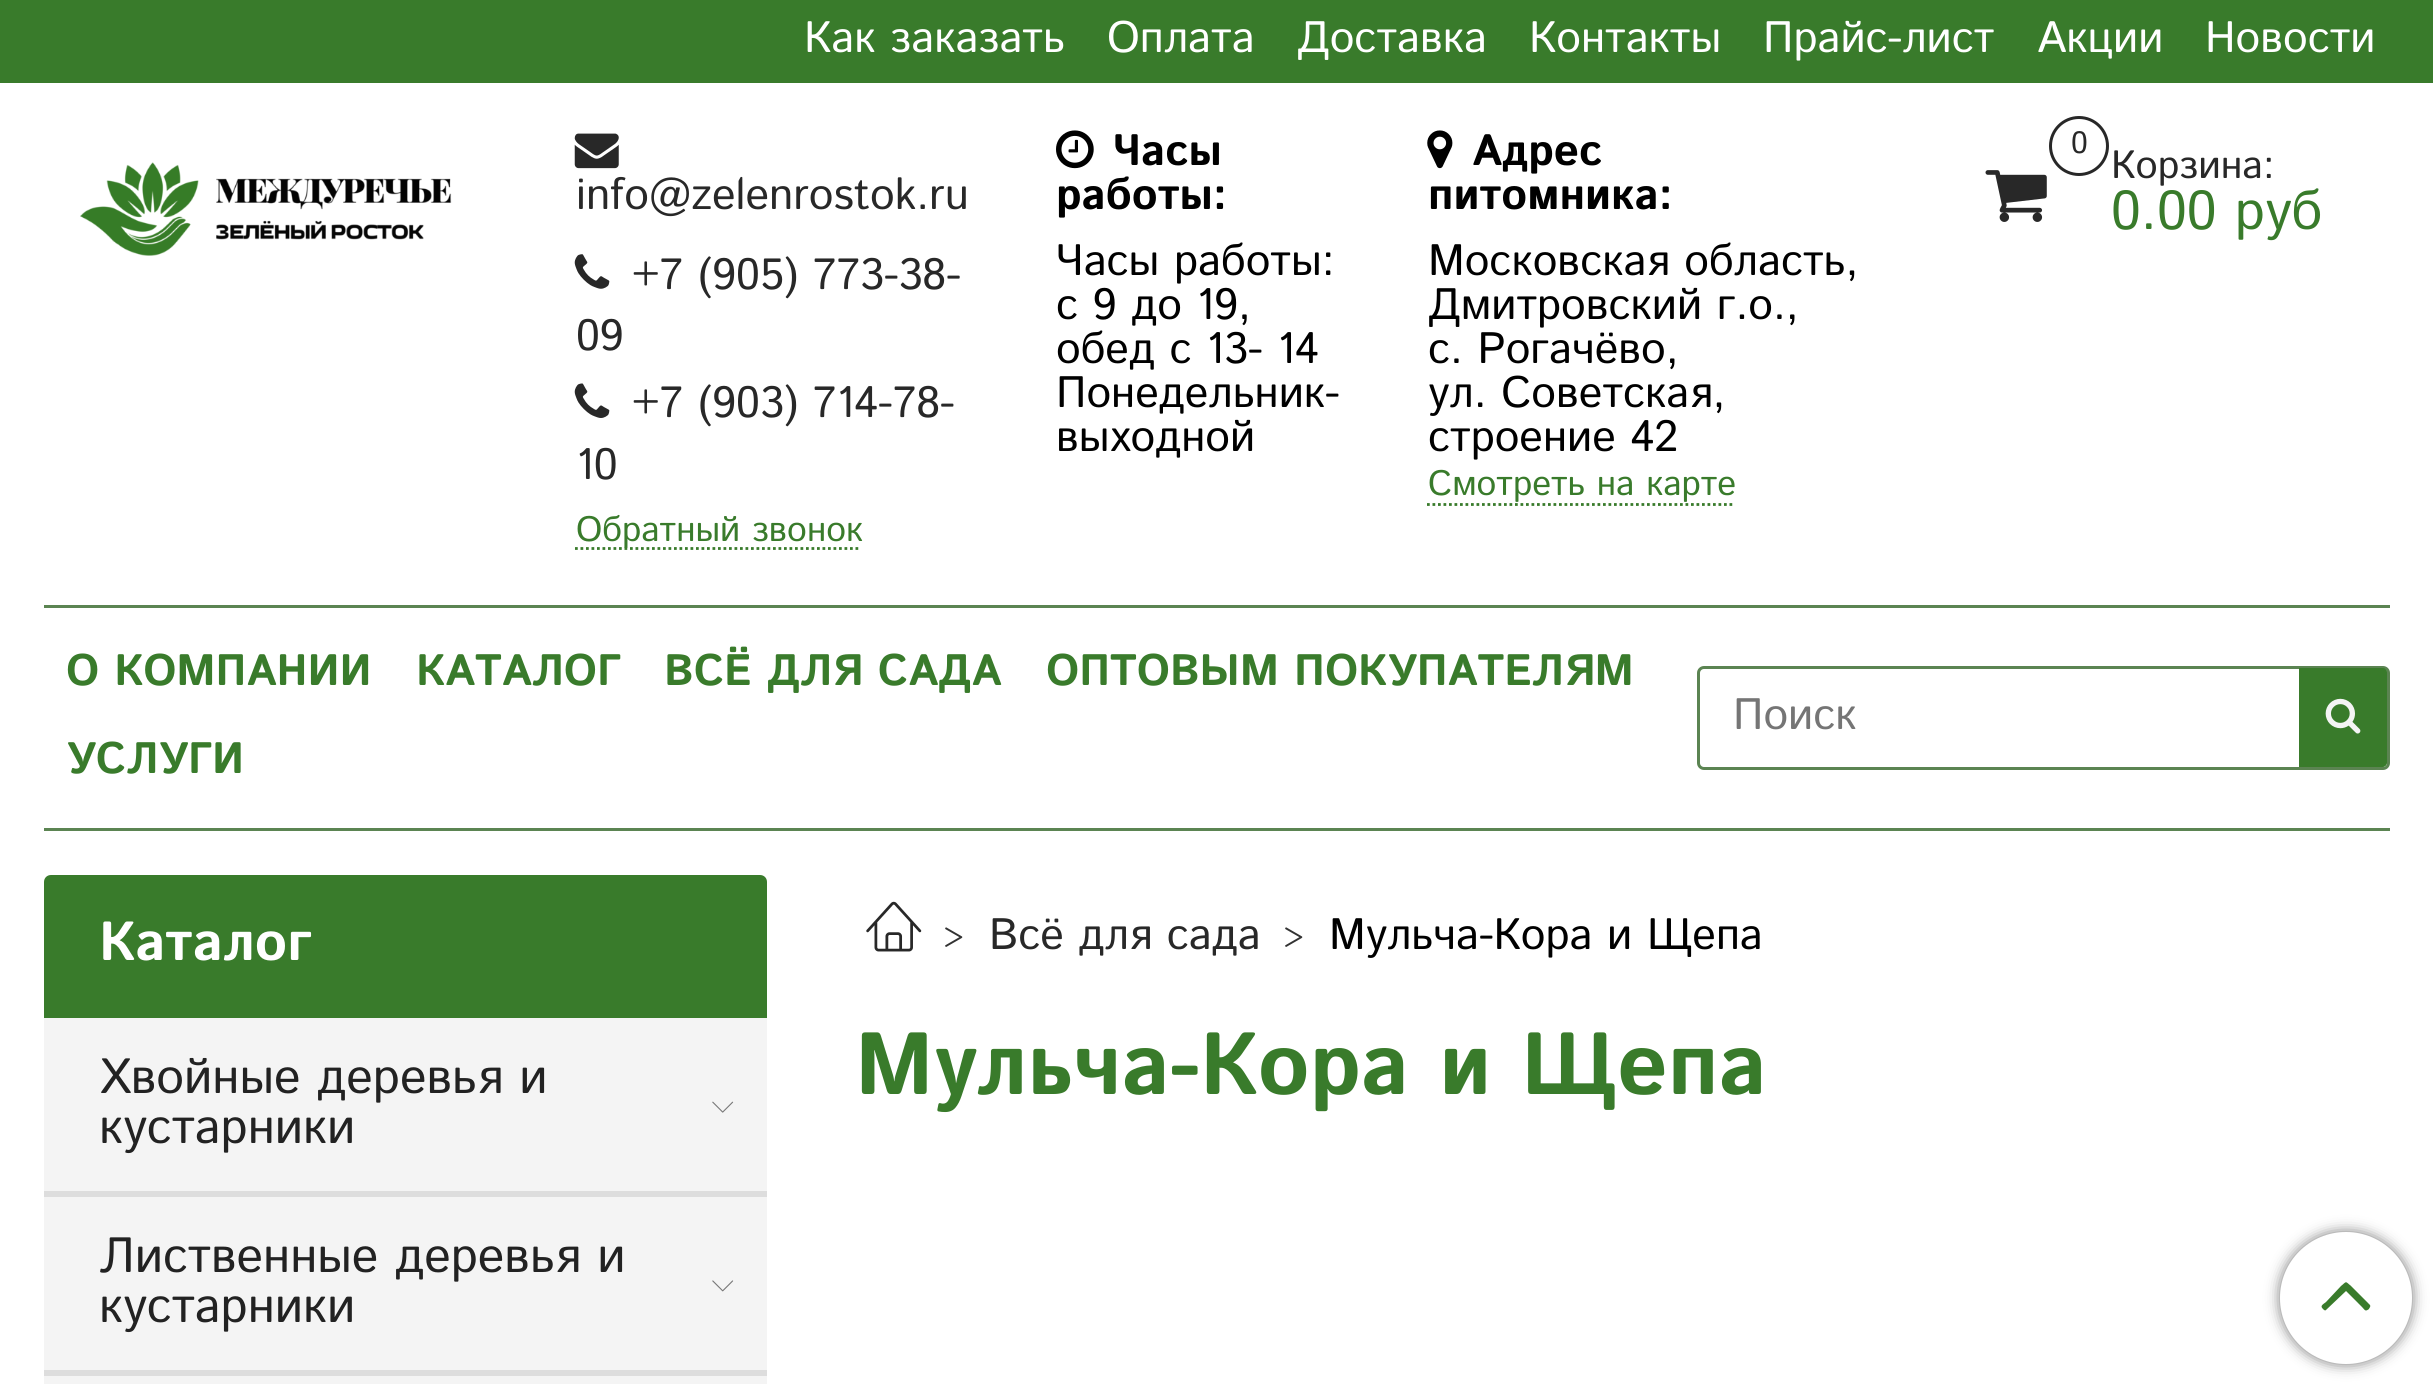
#include <cairo.h>
#include <math.h>
#include <stddef.h>

static cairo_t *ctx;

static void use_color(int r, int g, int b) {
    cairo_set_source_rgb(ctx, r / 255.0, g / 255.0, b / 255.0);
}

static void round_rect(double x, double y, double w, double h, double r) {
    cairo_new_sub_path(ctx);
    cairo_arc(ctx, x + w - r, y + h - r, r, 0, M_PI / 2);
    cairo_arc(ctx, x + r, y + h - r, r, M_PI / 2, M_PI);
    cairo_arc(ctx, x + r, y + r, r, M_PI, 1.5 * M_PI);
    cairo_arc(ctx, x + w - r, y + r, r, 1.5 * M_PI, 2 * M_PI);
    cairo_close_path(ctx);
}

static void shadow(double x, double y, double w, double h, double r, double blur, double alpha) {
    cairo_push_group_with_content(ctx, CAIRO_CONTENT_ALPHA);
    cairo_set_operator(ctx, CAIRO_OPERATOR_SOURCE);
    for (int i = 15; i >= -15 && fmin(w, h) + blur * i / 3 > 0; i -= 2) {
        double e = blur * i / 6;
        cairo_set_source_rgba(ctx, 0, 0, 0, alpha * erfc((i - 1) / 8.5) / 2);
        round_rect(x - e, y - e, w + 2 * e, h + 2 * e, fmax(0, fmin(r + e + blur * .6, fmin(w, h) / 2 + e)));
        cairo_fill(ctx);
    }
    cairo_pattern_t *soft = cairo_pop_group(ctx);
    cairo_mask(ctx, soft);
    cairo_pattern_destroy(soft);
}

static void picture(const char *path, double x, double y, double w, double h) {
    cairo_surface_t *image = cairo_image_surface_create_from_png(path);
    cairo_save(ctx);
    cairo_set_source_surface(ctx, image, x, y);
    cairo_rectangle(ctx, x, y, w, h);
    cairo_fill(ctx);
    cairo_restore(ctx);
    cairo_surface_destroy(image);
}

int main(void) {
    cairo_surface_t *surface = cairo_image_surface_create(CAIRO_FORMAT_RGB24, 2433, 1384);
    ctx = cairo_create(surface);
    cairo_font_options_t *options = cairo_font_options_create();
    cairo_font_options_set_hint_metrics(options, CAIRO_HINT_METRICS_OFF);
    cairo_font_options_set_hint_style(options, CAIRO_HINT_STYLE_NONE);
    cairo_set_font_options(ctx, options);
    cairo_set_miter_limit(ctx, 4);
    use_color(255, 255, 255);
    cairo_paint(ctx);
    use_color(57, 123, 43);
    cairo_rectangle(ctx, 0, 0, 2433, 83);
    cairo_fill(ctx);
    cairo_select_font_face(ctx, "Istok Web", CAIRO_FONT_SLANT_NORMAL, CAIRO_FONT_WEIGHT_NORMAL);
    cairo_set_font_size(ctx, 44);
    use_color(255, 255, 255);
    cairo_move_to(ctx, 804, 52);
    cairo_show_text(ctx, "Как заказать");
    cairo_move_to(ctx, 1107, 52);
    cairo_show_text(ctx, "Оплата");
    cairo_move_to(ctx, 1297, 52);
    cairo_show_text(ctx, "Доставка");
    cairo_move_to(ctx, 1529, 52);
    cairo_show_text(ctx, "Контакты");
    cairo_move_to(ctx, 1763, 52);
    cairo_show_text(ctx, "Прайс-лист");
    cairo_move_to(ctx, 2037, 52);
    cairo_show_text(ctx, "Акции");
    cairo_move_to(ctx, 2205, 52);
    cairo_show_text(ctx, "Новости");
    picture("img1.png", 80, 162, 372, 94);
    picture("img2.png", 574, 133, 45, 36);
    use_color(40, 40, 40);
    cairo_move_to(ctx, 576, 209);
    cairo_show_text(ctx, "info@zelenrostok.ru");
    picture("img3.png", 574, 254, 36, 35);
    cairo_move_to(ctx, 632, 289);
    cairo_show_text(ctx, "+7 (905) 773-38-");
    cairo_move_to(ctx, 576, 350);
    cairo_show_text(ctx, "09");
    picture("img4.png", 574, 383, 36, 35);
    cairo_move_to(ctx, 632, 417);
    cairo_show_text(ctx, "+7 (903) 714-78-");
    cairo_move_to(ctx, 576, 479);
    cairo_show_text(ctx, "10");
    cairo_new_path(ctx);
    cairo_move_to(ctx, 575, 548.5);
    cairo_line_to(ctx, 861, 548.5);
    use_color(57, 123, 43);
    cairo_set_line_width(ctx, 2.8);
    cairo_set_dash(ctx, (double[]){2.75, 2.75}, 2, 0);
    cairo_stroke(ctx);
    cairo_set_font_size(ctx, 35.25);
    cairo_move_to(ctx, 576, 541);
    cairo_show_text(ctx, "Обратный звонок");
    picture("img5.png", 1056, 130, 38, 39);
    cairo_select_font_face(ctx, "Istok Web", CAIRO_FONT_SLANT_NORMAL, CAIRO_FONT_WEIGHT_BOLD);
    cairo_set_font_size(ctx, 44);
    use_color(0, 0, 0);
    cairo_move_to(ctx, 1113, 165);
    cairo_show_text(ctx, "Часы");
    cairo_move_to(ctx, 1056, 209);
    cairo_show_text(ctx, "работы:");
    cairo_select_font_face(ctx, "Istok Web", CAIRO_FONT_SLANT_NORMAL, CAIRO_FONT_WEIGHT_NORMAL);
    cairo_move_to(ctx, 1056, 275);
    cairo_show_text(ctx, "Часы работы:");
    cairo_move_to(ctx, 1056, 319);
    cairo_show_text(ctx, "с 9 до 19,");
    cairo_move_to(ctx, 1056, 363);
    cairo_show_text(ctx, "обед с 13- 14");
    cairo_move_to(ctx, 1056, 407);
    cairo_show_text(ctx, "Понедельник-");
    cairo_move_to(ctx, 1056, 451);
    cairo_show_text(ctx, "выходной");
    picture("img6.png", 1427, 130, 26, 39);
    cairo_select_font_face(ctx, "Istok Web", CAIRO_FONT_SLANT_NORMAL, CAIRO_FONT_WEIGHT_BOLD);
    cairo_move_to(ctx, 1472, 165);
    cairo_show_text(ctx, "Адрес");
    cairo_move_to(ctx, 1428, 209);
    cairo_show_text(ctx, "питомника:");
    cairo_select_font_face(ctx, "Istok Web", CAIRO_FONT_SLANT_NORMAL, CAIRO_FONT_WEIGHT_NORMAL);
    cairo_move_to(ctx, 1428, 275);
    cairo_show_text(ctx, "Московская область,");
    cairo_move_to(ctx, 1428, 319);
    cairo_show_text(ctx, "Дмитровcкий г.о.,");
    cairo_move_to(ctx, 1428, 363);
    cairo_show_text(ctx, "с. Рогачёво,");
    cairo_move_to(ctx, 1428, 407);
    cairo_show_text(ctx, "ул. Советская,");
    cairo_move_to(ctx, 1428, 451);
    cairo_show_text(ctx, "строение 42");
    cairo_new_path(ctx);
    cairo_move_to(ctx, 1427, 504.5);
    cairo_line_to(ctx, 1735, 504.5);
    use_color(57, 123, 43);
    cairo_stroke(ctx);
    cairo_set_font_size(ctx, 35.25);
    cairo_move_to(ctx, 1428, 495);
    cairo_show_text(ctx, "Смотреть на карте");
    cairo_new_path(ctx);
    cairo_arc(ctx, 2079, 146, 28.5, 0, 2 * M_PI);
    use_color(40, 40, 40);
    cairo_set_line_width(ctx, 3);
    cairo_set_dash(ctx, NULL, 0, 0);
    cairo_stroke(ctx);
    cairo_set_font_size(ctx, 31);
    cairo_move_to(ctx, 2071, 153);
    cairo_show_text(ctx, "0");
    picture("img7.png", 1985, 170, 62, 52);
    cairo_set_font_size(ctx, 39.5);
    cairo_move_to(ctx, 2111, 178);
    cairo_show_text(ctx, "Корзина:");
    cairo_set_font_size(ctx, 55);
    use_color(57, 123, 43);
    cairo_move_to(ctx, 2111, 229);
    cairo_show_text(ctx, "0.00 руб");
    use_color(91, 132, 82);
    cairo_rectangle(ctx, 44, 605, 2346, 3);
    cairo_fill(ctx);
    cairo_rectangle(ctx, 44, 828, 2346, 3);
    cairo_fill(ctx);
    cairo_select_font_face(ctx, "Istok Web", CAIRO_FONT_SLANT_NORMAL, CAIRO_FONT_WEIGHT_BOLD);
    cairo_set_font_size(ctx, 44);
    use_color(57, 123, 43);
    cairo_move_to(ctx, 66, 685);
    cairo_show_text(ctx, "О КОМПАНИИ");
    cairo_move_to(ctx, 416, 685);
    cairo_show_text(ctx, "КАТАЛОГ");
    cairo_move_to(ctx, 664, 685);
    cairo_show_text(ctx, "ВСЁ ДЛЯ САДА");
    cairo_move_to(ctx, 1046, 685);
    cairo_show_text(ctx, "ОПТОВЫМ ПОКУПАТЕЛЯМ");
    cairo_move_to(ctx, 66, 773);
    cairo_show_text(ctx, "УСЛУГИ");
    round_rect(1698.5, 667.5, 690, 101, 5.5);
    use_color(91, 132, 82);
    cairo_stroke(ctx);
    cairo_select_font_face(ctx, "Istok Web", CAIRO_FONT_SLANT_NORMAL, CAIRO_FONT_WEIGHT_NORMAL);
    use_color(117, 117, 117);
    cairo_move_to(ctx, 1733, 729);
    cairo_show_text(ctx, "Поиск");
    use_color(57, 123, 43);
    cairo_new_path(ctx);
    cairo_move_to(ctx, 2299, 668);
    cairo_line_to(ctx, 2383, 668);
    cairo_curve_to(ctx, 2385, 668, 2387, 670, 2387, 672);
    cairo_line_to(ctx, 2387, 763);
    cairo_curve_to(ctx, 2387, 765, 2385, 767, 2383, 767);
    cairo_line_to(ctx, 2299, 767);
    cairo_close_path(ctx);
    cairo_fill(ctx);
    picture("img8.png", 2325, 698, 36, 36);
    cairo_new_path(ctx);
    cairo_move_to(ctx, 51, 875);
    cairo_line_to(ctx, 760, 875);
    cairo_curve_to(ctx, 764, 875, 767, 878, 767, 882);
    cairo_line_to(ctx, 767, 1018);
    cairo_line_to(ctx, 44, 1018);
    cairo_line_to(ctx, 44, 882);
    cairo_curve_to(ctx, 44, 878, 47, 875, 51, 875);
    cairo_close_path(ctx);
    cairo_fill(ctx);
    cairo_select_font_face(ctx, "Istok Web", CAIRO_FONT_SLANT_NORMAL, CAIRO_FONT_WEIGHT_BOLD);
    cairo_set_font_size(ctx, 55);
    use_color(255, 255, 255);
    cairo_move_to(ctx, 99, 960);
    cairo_show_text(ctx, "Каталог");
    use_color(244, 244, 244);
    cairo_rectangle(ctx, 44, 1018, 723, 366);
    cairo_fill(ctx);
    use_color(221, 221, 221);
    cairo_rectangle(ctx, 44, 1191, 723, 6);
    cairo_fill(ctx);
    cairo_select_font_face(ctx, "Istok Web", CAIRO_FONT_SLANT_NORMAL, CAIRO_FONT_WEIGHT_NORMAL);
    cairo_set_font_size(ctx, 49.5);
    use_color(34, 34, 34);
    cairo_move_to(ctx, 99, 1093);
    cairo_show_text(ctx, "Хвойные деревья и");
    cairo_move_to(ctx, 99, 1143);
    cairo_show_text(ctx, "кустарники");
    picture("img9.png", 712, 1101, 22, 12);
    use_color(221, 221, 221);
    cairo_rectangle(ctx, 44, 1370, 723, 6);
    cairo_fill(ctx);
    use_color(34, 34, 34);
    cairo_move_to(ctx, 99, 1272);
    cairo_show_text(ctx, "Лиственные деревья и");
    cairo_move_to(ctx, 99, 1322);
    cairo_show_text(ctx, "кустарники");
    picture("img10.png", 712, 1280, 22, 12);
    picture("img11.png", 866, 901, 56, 51);
    cairo_set_font_size(ctx, 33);
    use_color(51, 51, 51);
    cairo_move_to(ctx, 943, 949);
    cairo_show_text(ctx, ">");
    cairo_set_font_size(ctx, 44);
    use_color(40, 40, 40);
    cairo_move_to(ctx, 989, 949);
    cairo_show_text(ctx, "Всё для сада");
    cairo_set_font_size(ctx, 33);
    use_color(51, 51, 51);
    cairo_move_to(ctx, 1283, 949);
    cairo_show_text(ctx, ">");
    cairo_set_font_size(ctx, 44);
    use_color(0, 0, 0);
    cairo_move_to(ctx, 1329, 949);
    cairo_show_text(ctx, "Мульча-Кора и Щепа");
    cairo_select_font_face(ctx, "Istok Web", CAIRO_FONT_SLANT_NORMAL, CAIRO_FONT_WEIGHT_BOLD);
    cairo_set_font_size(ctx, 88);
    use_color(57, 123, 43);
    cairo_move_to(ctx, 855, 1094);
    cairo_show_text(ctx, "Мульча-Кора и Щепа");
    use_color(119, 119, 119);
    shadow(2280, 1232, 132, 132, 66, 7, 1);
    use_color(255, 255, 255);
    cairo_arc(ctx, 2346, 1298, 66, 0, 2 * M_PI);
    cairo_fill(ctx);
    use_color(57, 123, 43);
    cairo_new_path(ctx);
    cairo_move_to(ctx, 2370, 1305);
    cairo_curve_to(ctx, 2371, 1307, 2369, 1308, 2369, 1309);
    cairo_curve_to(ctx, 2365, 1312, 2365, 1310, 2362, 1307);
    cairo_line_to(ctx, 2346, 1291);
    cairo_line_to(ctx, 2326, 1310);
    cairo_curve_to(ctx, 2325, 1311, 2324, 1310, 2323, 1309);
    cairo_curve_to(ctx, 2320, 1306, 2322, 1305, 2326, 1302);
    cairo_line_to(ctx, 2341, 1286);
    cairo_curve_to(ctx, 2347, 1281, 2345, 1281, 2351, 1286);
    cairo_close_path(ctx);
    cairo_fill(ctx);
    cairo_surface_write_to_png(surface, "result.png");
    cairo_font_options_destroy(options);
    cairo_destroy(ctx);
    cairo_surface_destroy(surface);
    return 0;
}
